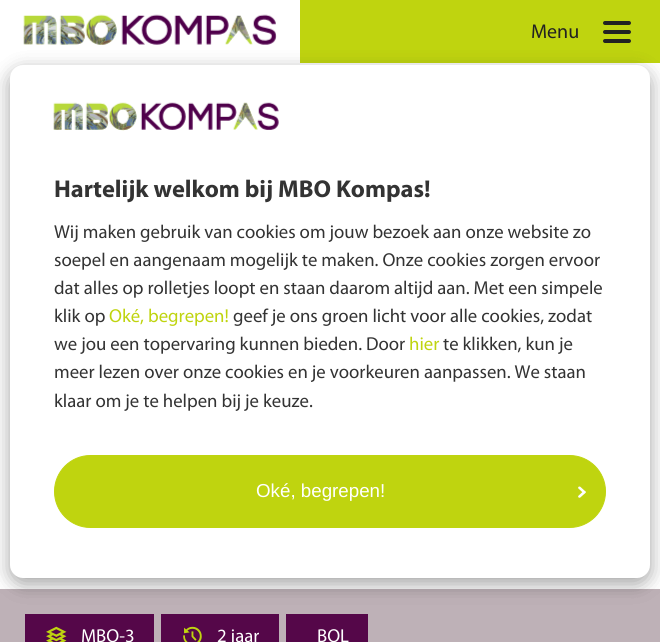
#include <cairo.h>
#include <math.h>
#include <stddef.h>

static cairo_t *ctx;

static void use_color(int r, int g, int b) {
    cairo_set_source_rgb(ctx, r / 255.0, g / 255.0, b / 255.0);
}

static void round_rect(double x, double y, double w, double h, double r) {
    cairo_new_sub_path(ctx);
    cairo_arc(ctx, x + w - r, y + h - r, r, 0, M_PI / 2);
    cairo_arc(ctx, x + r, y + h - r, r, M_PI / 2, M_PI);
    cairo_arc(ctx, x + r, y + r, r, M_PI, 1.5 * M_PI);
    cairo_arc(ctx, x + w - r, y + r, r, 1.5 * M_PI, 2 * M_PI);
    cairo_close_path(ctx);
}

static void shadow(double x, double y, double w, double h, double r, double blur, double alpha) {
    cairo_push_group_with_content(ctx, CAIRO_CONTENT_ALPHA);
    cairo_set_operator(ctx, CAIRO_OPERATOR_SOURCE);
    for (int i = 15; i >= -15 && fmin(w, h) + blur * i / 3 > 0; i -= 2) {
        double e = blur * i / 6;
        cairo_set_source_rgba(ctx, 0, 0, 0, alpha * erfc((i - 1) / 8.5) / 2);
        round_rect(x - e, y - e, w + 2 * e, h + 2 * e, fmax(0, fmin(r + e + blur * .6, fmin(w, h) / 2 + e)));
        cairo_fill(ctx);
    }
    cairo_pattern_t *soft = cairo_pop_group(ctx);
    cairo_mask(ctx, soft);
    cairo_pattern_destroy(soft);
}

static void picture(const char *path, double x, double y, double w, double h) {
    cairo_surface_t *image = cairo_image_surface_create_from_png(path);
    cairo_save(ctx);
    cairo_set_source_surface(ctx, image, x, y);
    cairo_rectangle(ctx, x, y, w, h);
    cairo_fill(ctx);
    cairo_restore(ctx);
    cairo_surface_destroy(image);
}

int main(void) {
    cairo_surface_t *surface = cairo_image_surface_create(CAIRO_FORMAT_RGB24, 660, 642);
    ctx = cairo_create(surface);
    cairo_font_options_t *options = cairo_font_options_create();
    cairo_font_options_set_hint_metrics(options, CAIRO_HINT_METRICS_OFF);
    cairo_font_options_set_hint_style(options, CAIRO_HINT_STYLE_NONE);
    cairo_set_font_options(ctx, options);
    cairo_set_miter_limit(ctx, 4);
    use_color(255, 255, 255);
    cairo_paint(ctx);
    use_color(191, 212, 15);
    cairo_rectangle(ctx, 300, 0, 360, 63);
    cairo_fill(ctx);
    picture("img1.png", 23, 14, 254, 31);
    use_color(34, 34, 34);
    round_rect(603, 21, 28, 4, 2);
    cairo_fill(ctx);
    cairo_select_font_face(ctx, "Myriad", CAIRO_FONT_SLANT_NORMAL, CAIRO_FONT_WEIGHT_NORMAL);
    cairo_set_font_size(ctx, 20);
    cairo_move_to(ctx, 531, 38);
    cairo_show_text(ctx, "Menu");
    round_rect(603, 30, 28, 4, 2);
    cairo_fill(ctx);
    round_rect(603, 39, 28, 4, 2);
    cairo_fill(ctx);
    use_color(190, 177, 183);
    cairo_rectangle(ctx, 0, 589, 660, 53);
    cairo_fill(ctx);
    use_color(85, 7, 73);
    cairo_rectangle(ctx, 25, 614, 129, 28);
    cairo_fill(ctx);
    picture("img2.png", 46, 626, 21, 16);
    cairo_set_font_size(ctx, 18.75);
    use_color(255, 255, 255);
    cairo_move_to(ctx, 81, 642);
    cairo_show_text(ctx, "MBO-3");
    use_color(85, 7, 73);
    cairo_rectangle(ctx, 161, 614, 118, 28);
    cairo_fill(ctx);
    picture("img3.png", 183, 626, 19, 16);
    use_color(255, 255, 255);
    cairo_move_to(ctx, 217, 642);
    cairo_show_text(ctx, "2 jaar");
    use_color(85, 7, 73);
    cairo_rectangle(ctx, 286, 614, 82, 28);
    cairo_fill(ctx);
    use_color(255, 255, 255);
    cairo_move_to(ctx, 317, 642);
    cairo_show_text(ctx, "BOL");
    use_color(0, 0, 0);
    shadow(10, 71, 640, 513, 13, 9.5, 0.19);
    shadow(10, 71, 640, 513, 13, 9.5, 0.2);
    use_color(255, 255, 255);
    cairo_new_path(ctx);
    cairo_move_to(ctx, 23, 65);
    cairo_line_to(ctx, 637, 65);
    cairo_curve_to(ctx, 644, 65, 650, 71, 650, 78);
    cairo_line_to(ctx, 650, 173);
    cairo_line_to(ctx, 10, 173);
    cairo_line_to(ctx, 10, 78);
    cairo_curve_to(ctx, 10, 71, 16, 65, 23, 65);
    cairo_close_path(ctx);
    cairo_fill(ctx);
    picture("img4.png", 53, 102, 226, 29);
    cairo_rectangle(ctx, 10, 173, 640, 282);
    cairo_fill(ctx);
    cairo_select_font_face(ctx, "Myriad", CAIRO_FONT_SLANT_NORMAL, CAIRO_FONT_WEIGHT_BOLD);
    cairo_set_font_size(ctx, 24.4);
    use_color(51, 51, 51);
    cairo_move_to(ctx, 54, 197);
    cairo_show_text(ctx, "Hartelijk welkom bij MBO Kompas!");
    cairo_select_font_face(ctx, "Myriad", CAIRO_FONT_SLANT_NORMAL, CAIRO_FONT_WEIGHT_NORMAL);
    cairo_set_font_size(ctx, 18.75);
    cairo_move_to(ctx, 54, 238);
    cairo_show_text(ctx, "Wij maken gebruik van cookies om jouw bezoek aan onze website zo");
    cairo_move_to(ctx, 54, 266);
    cairo_show_text(ctx, "soepel en aangenaam mogelijk te maken. Onze cookies zorgen ervoor");
    cairo_move_to(ctx, 54, 294);
    cairo_show_text(ctx, "dat alles op rolletjes loopt en staan daarom altijd aan. Met een simpele");
    cairo_move_to(ctx, 54, 322);
    cairo_show_text(ctx, "klik op");
    use_color(191, 212, 15);
    cairo_move_to(ctx, 109, 322);
    cairo_show_text(ctx, "Oké, begrepen!");
    use_color(51, 51, 51);
    cairo_move_to(ctx, 233, 322);
    cairo_show_text(ctx, "geef je ons groen licht voor alle cookies, zodat");
    cairo_move_to(ctx, 54, 350);
    cairo_show_text(ctx, "we jou een topervaring kunnen bieden. Door");
    use_color(191, 212, 15);
    cairo_move_to(ctx, 409, 350);
    cairo_show_text(ctx, "hier");
    use_color(51, 51, 51);
    cairo_move_to(ctx, 443, 350);
    cairo_show_text(ctx, "te klikken, kun je");
    cairo_move_to(ctx, 54, 378);
    cairo_show_text(ctx, "meer lezen over onze cookies en je voorkeuren aanpassen. We staan");
    cairo_move_to(ctx, 54, 407);
    cairo_show_text(ctx, "klaar om je te helpen bij je keuze.");
    use_color(255, 255, 255);
    cairo_new_path(ctx);
    cairo_move_to(ctx, 10, 455);
    cairo_line_to(ctx, 650, 455);
    cairo_line_to(ctx, 650, 565);
    cairo_curve_to(ctx, 650, 572, 644, 578, 637, 578);
    cairo_line_to(ctx, 23, 578);
    cairo_curve_to(ctx, 16, 578, 10, 572, 10, 565);
    cairo_close_path(ctx);
    cairo_fill(ctx);
    use_color(191, 212, 15);
    round_rect(54.5, 455.5, 551, 72, 36);
    cairo_fill_preserve(ctx);
    cairo_set_line_width(ctx, 1);
    cairo_stroke(ctx);
    cairo_select_font_face(ctx, "Liberation Sans", CAIRO_FONT_SLANT_NORMAL, CAIRO_FONT_WEIGHT_NORMAL);
    use_color(255, 255, 255);
    cairo_move_to(ctx, 256, 497);
    cairo_show_text(ctx, "Oké, begrepen!");
    picture("img5.png", 578, 486, 8, 12);
    cairo_surface_write_to_png(surface, "result.png");
    cairo_font_options_destroy(options);
    cairo_destroy(ctx);
    cairo_surface_destroy(surface);
    return 0;
}
